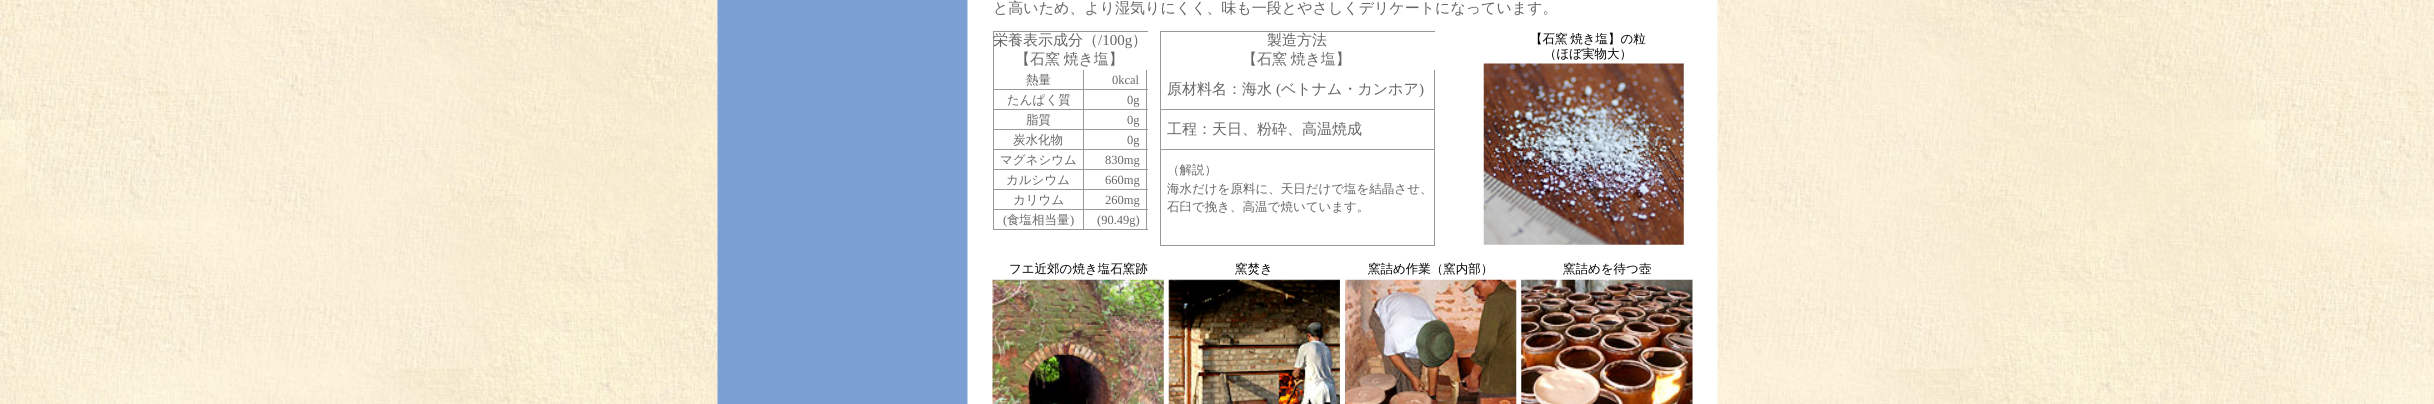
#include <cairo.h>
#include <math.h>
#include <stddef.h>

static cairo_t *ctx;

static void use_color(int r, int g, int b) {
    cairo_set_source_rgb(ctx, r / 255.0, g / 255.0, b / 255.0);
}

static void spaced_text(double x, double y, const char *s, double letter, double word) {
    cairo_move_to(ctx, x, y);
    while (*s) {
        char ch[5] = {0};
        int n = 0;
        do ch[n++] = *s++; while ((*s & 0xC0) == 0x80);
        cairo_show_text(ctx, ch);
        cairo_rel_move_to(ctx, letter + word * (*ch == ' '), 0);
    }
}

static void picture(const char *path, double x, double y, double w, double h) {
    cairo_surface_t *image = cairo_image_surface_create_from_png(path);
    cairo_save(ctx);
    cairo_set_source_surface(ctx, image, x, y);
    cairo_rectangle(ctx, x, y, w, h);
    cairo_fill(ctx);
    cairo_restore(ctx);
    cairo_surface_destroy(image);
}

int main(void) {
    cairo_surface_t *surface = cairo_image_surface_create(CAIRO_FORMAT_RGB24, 2434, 404);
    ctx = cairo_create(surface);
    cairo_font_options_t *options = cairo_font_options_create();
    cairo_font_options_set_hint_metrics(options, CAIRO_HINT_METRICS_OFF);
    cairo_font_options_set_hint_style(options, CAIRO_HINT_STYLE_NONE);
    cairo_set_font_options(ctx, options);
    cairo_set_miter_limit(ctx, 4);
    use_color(255, 255, 255);
    cairo_paint(ctx);
    picture("img1.png", 0, 0, 2434, 404);
    picture("img2.png", 717, 0, 1001, 404);
    cairo_select_font_face(ctx, "WenQuanYi Zen Hei Medium", CAIRO_FONT_SLANT_NORMAL, CAIRO_FONT_WEIGHT_NORMAL);
    cairo_set_font_size(ctx, 15);
    use_color(102, 102, 102);
    cairo_move_to(ctx, 993, 13);
    cairo_show_text(ctx, "と高いため、より湿気りにくく、味も一段とやさしくデリケートになっています。");
    use_color(153, 153, 153);
    cairo_rectangle(ctx, 993, 31, 155, 1);
    cairo_fill(ctx);
    cairo_rectangle(ctx, 993, 31, 1, 199);
    cairo_fill(ctx);
    use_color(102, 102, 102);
    cairo_move_to(ctx, 993, 45);
    cairo_show_text(ctx, "栄養表示成分（");
    cairo_select_font_face(ctx, "Liberation Serif", CAIRO_FONT_SLANT_NORMAL, CAIRO_FONT_WEIGHT_NORMAL);
    cairo_move_to(ctx, 1098, 45);
    cairo_show_text(ctx, "/100g");
    cairo_select_font_face(ctx, "WenQuanYi Zen Hei Medium", CAIRO_FONT_SLANT_NORMAL, CAIRO_FONT_WEIGHT_NORMAL);
    cairo_move_to(ctx, 1132, 45);
    cairo_show_text(ctx, "）");
    spaced_text(1015, 64, "【石窯 焼き塩】", 0, -1);
    use_color(153, 153, 153);
    cairo_rectangle(ctx, 1083, 70, 1, 160);
    cairo_fill(ctx);
    cairo_rectangle(ctx, 994, 89, 90, 1);
    cairo_fill(ctx);
    cairo_set_font_size(ctx, 12.5);
    use_color(102, 102, 102);
    cairo_move_to(ctx, 1026, 84);
    cairo_show_text(ctx, "熱量");
    use_color(153, 153, 153);
    cairo_rectangle(ctx, 1146, 70, 1, 160);
    cairo_fill(ctx);
    cairo_rectangle(ctx, 1084, 89, 64, 1);
    cairo_fill(ctx);
    cairo_select_font_face(ctx, "Liberation Serif", CAIRO_FONT_SLANT_NORMAL, CAIRO_FONT_WEIGHT_NORMAL);
    use_color(102, 102, 102);
    cairo_move_to(ctx, 1112, 84);
    cairo_show_text(ctx, "0kcal");
    use_color(153, 153, 153);
    cairo_rectangle(ctx, 994, 109, 154, 1);
    cairo_fill(ctx);
    cairo_select_font_face(ctx, "WenQuanYi Zen Hei Medium", CAIRO_FONT_SLANT_NORMAL, CAIRO_FONT_WEIGHT_NORMAL);
    use_color(102, 102, 102);
    cairo_move_to(ctx, 1007, 104);
    cairo_show_text(ctx, "たんぱく質");
    cairo_select_font_face(ctx, "Liberation Serif", CAIRO_FONT_SLANT_NORMAL, CAIRO_FONT_WEIGHT_NORMAL);
    cairo_move_to(ctx, 1127, 104);
    cairo_show_text(ctx, "0g");
    use_color(153, 153, 153);
    cairo_rectangle(ctx, 994, 129, 154, 1);
    cairo_fill(ctx);
    cairo_select_font_face(ctx, "WenQuanYi Zen Hei Medium", CAIRO_FONT_SLANT_NORMAL, CAIRO_FONT_WEIGHT_NORMAL);
    use_color(102, 102, 102);
    cairo_move_to(ctx, 1026, 124);
    cairo_show_text(ctx, "脂質");
    cairo_select_font_face(ctx, "Liberation Serif", CAIRO_FONT_SLANT_NORMAL, CAIRO_FONT_WEIGHT_NORMAL);
    cairo_move_to(ctx, 1127, 124);
    cairo_show_text(ctx, "0g");
    use_color(153, 153, 153);
    cairo_rectangle(ctx, 994, 149, 154, 1);
    cairo_fill(ctx);
    cairo_select_font_face(ctx, "WenQuanYi Zen Hei Medium", CAIRO_FONT_SLANT_NORMAL, CAIRO_FONT_WEIGHT_NORMAL);
    use_color(102, 102, 102);
    cairo_move_to(ctx, 1013, 144);
    cairo_show_text(ctx, "炭水化物");
    cairo_select_font_face(ctx, "Liberation Serif", CAIRO_FONT_SLANT_NORMAL, CAIRO_FONT_WEIGHT_NORMAL);
    cairo_move_to(ctx, 1127, 144);
    cairo_show_text(ctx, "0g");
    use_color(153, 153, 153);
    cairo_rectangle(ctx, 994, 169, 154, 1);
    cairo_fill(ctx);
    cairo_select_font_face(ctx, "WenQuanYi Zen Hei Medium", CAIRO_FONT_SLANT_NORMAL, CAIRO_FONT_WEIGHT_NORMAL);
    use_color(102, 102, 102);
    cairo_move_to(ctx, 1000, 164);
    cairo_show_text(ctx, "マグネシウム");
    cairo_select_font_face(ctx, "Liberation Serif", CAIRO_FONT_SLANT_NORMAL, CAIRO_FONT_WEIGHT_NORMAL);
    cairo_move_to(ctx, 1105, 164);
    cairo_show_text(ctx, "830mg");
    use_color(153, 153, 153);
    cairo_rectangle(ctx, 994, 189, 154, 1);
    cairo_fill(ctx);
    cairo_select_font_face(ctx, "WenQuanYi Zen Hei Medium", CAIRO_FONT_SLANT_NORMAL, CAIRO_FONT_WEIGHT_NORMAL);
    use_color(102, 102, 102);
    cairo_move_to(ctx, 1006, 184);
    cairo_show_text(ctx, "カルシウム");
    cairo_select_font_face(ctx, "Liberation Serif", CAIRO_FONT_SLANT_NORMAL, CAIRO_FONT_WEIGHT_NORMAL);
    cairo_move_to(ctx, 1105, 184);
    cairo_show_text(ctx, "660mg");
    use_color(153, 153, 153);
    cairo_rectangle(ctx, 994, 209, 154, 1);
    cairo_fill(ctx);
    cairo_select_font_face(ctx, "WenQuanYi Zen Hei Medium", CAIRO_FONT_SLANT_NORMAL, CAIRO_FONT_WEIGHT_NORMAL);
    use_color(102, 102, 102);
    cairo_move_to(ctx, 1013, 204);
    cairo_show_text(ctx, "カリウム");
    cairo_select_font_face(ctx, "Liberation Serif", CAIRO_FONT_SLANT_NORMAL, CAIRO_FONT_WEIGHT_NORMAL);
    cairo_move_to(ctx, 1105, 204);
    cairo_show_text(ctx, "260mg");
    use_color(153, 153, 153);
    cairo_rectangle(ctx, 994, 229, 154, 1);
    cairo_fill(ctx);
    use_color(102, 102, 102);
    cairo_move_to(ctx, 1003, 224);
    cairo_show_text(ctx, "(");
    cairo_select_font_face(ctx, "WenQuanYi Zen Hei Medium", CAIRO_FONT_SLANT_NORMAL, CAIRO_FONT_WEIGHT_NORMAL);
    cairo_move_to(ctx, 1007, 224);
    cairo_show_text(ctx, "食塩相当量");
    cairo_select_font_face(ctx, "Liberation Serif", CAIRO_FONT_SLANT_NORMAL, CAIRO_FONT_WEIGHT_NORMAL);
    cairo_move_to(ctx, 1070, 224);
    cairo_show_text(ctx, ")");
    cairo_move_to(ctx, 1097, 224);
    cairo_show_text(ctx, "(90.49g)");
    use_color(153, 153, 153);
    cairo_rectangle(ctx, 1160, 31, 275, 1);
    cairo_fill(ctx);
    cairo_rectangle(ctx, 1160, 31, 1, 215);
    cairo_fill(ctx);
    cairo_select_font_face(ctx, "WenQuanYi Zen Hei Medium", CAIRO_FONT_SLANT_NORMAL, CAIRO_FONT_WEIGHT_NORMAL);
    cairo_set_font_size(ctx, 15);
    use_color(102, 102, 102);
    cairo_move_to(ctx, 1267, 45);
    cairo_show_text(ctx, "製造方法");
    spaced_text(1242, 64, "【石窯 焼き塩】", 0, -1);
    use_color(153, 153, 153);
    cairo_rectangle(ctx, 1434, 70, 1, 176);
    cairo_fill(ctx);
    cairo_rectangle(ctx, 1161, 109, 274, 1);
    cairo_fill(ctx);
    use_color(102, 102, 102);
    cairo_move_to(ctx, 1167, 94);
    cairo_show_text(ctx, "原材料名：海水");
    cairo_select_font_face(ctx, "Liberation Serif", CAIRO_FONT_SLANT_NORMAL, CAIRO_FONT_WEIGHT_NORMAL);
    cairo_move_to(ctx, 1276, 94);
    cairo_show_text(ctx, "(");
    cairo_select_font_face(ctx, "WenQuanYi Zen Hei Medium", CAIRO_FONT_SLANT_NORMAL, CAIRO_FONT_WEIGHT_NORMAL);
    cairo_move_to(ctx, 1281, 94);
    cairo_show_text(ctx, "ベトナム・カンホア");
    cairo_select_font_face(ctx, "Liberation Serif", CAIRO_FONT_SLANT_NORMAL, CAIRO_FONT_WEIGHT_NORMAL);
    cairo_move_to(ctx, 1419, 94);
    cairo_show_text(ctx, ")");
    use_color(153, 153, 153);
    cairo_rectangle(ctx, 1161, 149, 274, 1);
    cairo_fill(ctx);
    cairo_select_font_face(ctx, "WenQuanYi Zen Hei Medium", CAIRO_FONT_SLANT_NORMAL, CAIRO_FONT_WEIGHT_NORMAL);
    use_color(102, 102, 102);
    cairo_move_to(ctx, 1167, 134);
    cairo_show_text(ctx, "工程：天日、粉砕、高温焼成");
    use_color(153, 153, 153);
    cairo_rectangle(ctx, 1161, 245, 274, 1);
    cairo_fill(ctx);
    cairo_set_font_size(ctx, 12.5);
    use_color(102, 102, 102);
    cairo_move_to(ctx, 1167, 174);
    cairo_show_text(ctx, "（解説）");
    cairo_move_to(ctx, 1167, 193);
    cairo_show_text(ctx, "海水だけを原料に、天日だけで塩を結晶させ、");
    cairo_move_to(ctx, 1167, 211);
    cairo_show_text(ctx, "石臼で挽き、高温で焼いています。");
    use_color(0, 0, 0);
    spaced_text(1530, 43, "【石窯 焼き塩】の粒", 0, -1);
    cairo_move_to(ctx, 1544, 58);
    cairo_show_text(ctx, "（ほぼ実物大）");
    picture("img3.png", 1483, 63, 201, 182);
    cairo_move_to(ctx, 1009, 273);
    cairo_show_text(ctx, "フエ近郊の焼き塩石窯跡");
    picture("img4.png", 992, 279, 172, 125);
    cairo_move_to(ctx, 1235, 273);
    cairo_show_text(ctx, "窯焚き");
    picture("img5.png", 1168, 279, 172, 125);
    cairo_move_to(ctx, 1368, 273);
    cairo_show_text(ctx, "窯詰め作業（窯内部）");
    picture("img6.png", 1345, 279, 172, 125);
    cairo_move_to(ctx, 1563, 273);
    cairo_show_text(ctx, "窯詰めを待つ壺");
    picture("img7.png", 1521, 279, 172, 125);
    cairo_surface_write_to_png(surface, "result.png");
    cairo_font_options_destroy(options);
    cairo_destroy(ctx);
    cairo_surface_destroy(surface);
    return 0;
}
